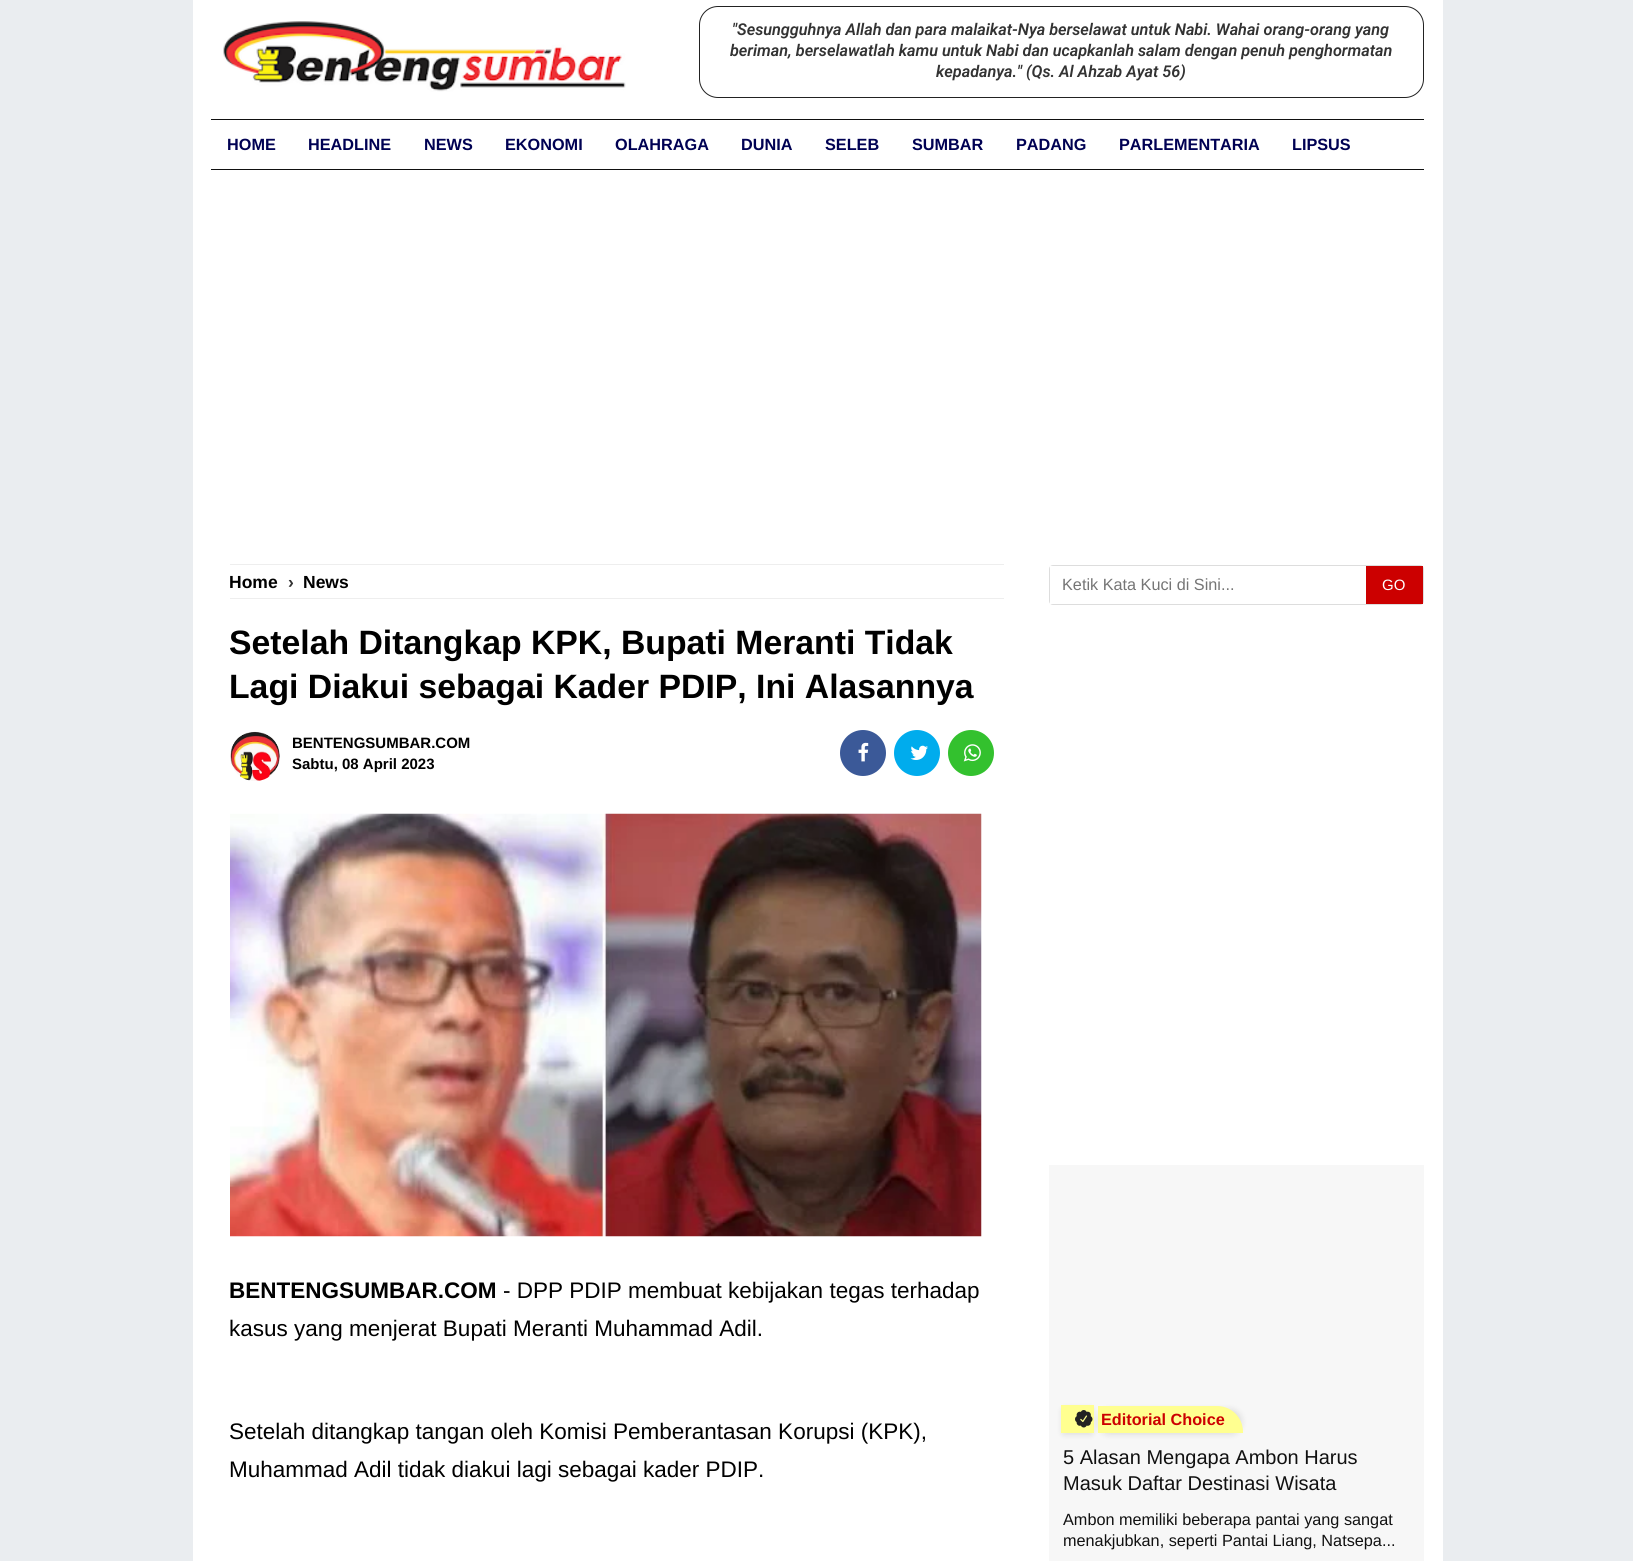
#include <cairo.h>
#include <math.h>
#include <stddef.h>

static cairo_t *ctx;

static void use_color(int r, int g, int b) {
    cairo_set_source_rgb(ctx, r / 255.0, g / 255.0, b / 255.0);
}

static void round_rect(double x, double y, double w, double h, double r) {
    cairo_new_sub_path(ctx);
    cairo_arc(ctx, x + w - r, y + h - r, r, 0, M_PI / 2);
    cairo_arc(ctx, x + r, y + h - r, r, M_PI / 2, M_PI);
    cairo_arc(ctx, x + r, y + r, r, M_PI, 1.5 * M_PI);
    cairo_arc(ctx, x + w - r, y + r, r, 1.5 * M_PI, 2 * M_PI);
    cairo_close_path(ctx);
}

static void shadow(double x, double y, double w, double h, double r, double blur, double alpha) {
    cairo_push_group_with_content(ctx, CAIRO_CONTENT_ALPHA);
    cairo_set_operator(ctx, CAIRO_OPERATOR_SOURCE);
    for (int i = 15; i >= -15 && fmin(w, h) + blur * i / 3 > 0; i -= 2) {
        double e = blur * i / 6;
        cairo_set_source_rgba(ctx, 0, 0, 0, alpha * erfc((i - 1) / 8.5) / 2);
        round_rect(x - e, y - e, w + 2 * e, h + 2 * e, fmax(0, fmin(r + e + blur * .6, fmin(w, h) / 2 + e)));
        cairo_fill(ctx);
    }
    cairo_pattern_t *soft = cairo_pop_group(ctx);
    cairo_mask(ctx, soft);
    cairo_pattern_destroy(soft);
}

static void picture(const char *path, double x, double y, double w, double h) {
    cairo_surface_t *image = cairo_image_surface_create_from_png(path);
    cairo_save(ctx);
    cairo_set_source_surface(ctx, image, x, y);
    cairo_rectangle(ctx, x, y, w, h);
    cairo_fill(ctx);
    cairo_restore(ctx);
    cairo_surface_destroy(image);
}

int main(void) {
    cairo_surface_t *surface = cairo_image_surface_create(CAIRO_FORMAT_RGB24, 1633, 1561);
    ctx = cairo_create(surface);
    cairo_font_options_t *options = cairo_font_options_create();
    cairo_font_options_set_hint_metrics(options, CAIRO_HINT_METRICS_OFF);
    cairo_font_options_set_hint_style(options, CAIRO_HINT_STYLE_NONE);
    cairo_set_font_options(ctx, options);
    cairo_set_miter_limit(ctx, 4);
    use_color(234, 237, 240);
    cairo_paint(ctx);
    use_color(255, 255, 255);
    cairo_rectangle(ctx, 193, 0, 1250, 1561);
    cairo_fill(ctx);
    picture("img1.png", 223, 21, 403, 71);
    round_rect(699.5, 6.5, 724, 91, 18.5);
    use_color(34, 34, 34);
    cairo_set_line_width(ctx, 1);
    cairo_stroke(ctx);
    cairo_select_font_face(ctx, "Roboto SemiBold", CAIRO_FONT_SLANT_ITALIC, CAIRO_FONT_WEIGHT_NORMAL);
    cairo_set_font_size(ctx, 16.25);
    use_color(51, 51, 51);
    cairo_move_to(ctx, 732, 35);
    cairo_show_text(ctx, "\"Sesungguhnya Allah dan para malaikat-Nya berselawat untuk Nabi. Wahai orang-orang yang");
    cairo_move_to(ctx, 730, 56);
    cairo_show_text(ctx, "beriman, berselawatlah kamu untuk Nabi dan ucapkanlah salam dengan penuh penghormatan");
    cairo_move_to(ctx, 936, 77);
    cairo_show_text(ctx, "kepadanya.\" (Qs. Al Ahzab Ayat 56)");
    use_color(17, 17, 17);
    cairo_rectangle(ctx, 211, 119, 1213, 1);
    cairo_fill(ctx);
    cairo_rectangle(ctx, 211, 169, 1213, 1);
    cairo_fill(ctx);
    cairo_select_font_face(ctx, "Liberation Sans", CAIRO_FONT_SLANT_NORMAL, CAIRO_FONT_WEIGHT_BOLD);
    use_color(0, 1, 83);
    cairo_move_to(ctx, 227, 150);
    cairo_show_text(ctx, "HOME");
    cairo_move_to(ctx, 308, 150);
    cairo_show_text(ctx, "HEADLINE");
    cairo_move_to(ctx, 424, 150);
    cairo_show_text(ctx, "NEWS");
    cairo_move_to(ctx, 505, 150);
    cairo_show_text(ctx, "EKONOMI");
    cairo_move_to(ctx, 615, 150);
    cairo_show_text(ctx, "OLAHRAGA");
    cairo_move_to(ctx, 741, 150);
    cairo_show_text(ctx, "DUNIA");
    cairo_move_to(ctx, 825, 150);
    cairo_show_text(ctx, "SELEB");
    cairo_move_to(ctx, 912, 150);
    cairo_show_text(ctx, "SUMBAR");
    cairo_move_to(ctx, 1016, 150);
    cairo_show_text(ctx, "PADANG");
    cairo_move_to(ctx, 1119, 150);
    cairo_show_text(ctx, "PARLEMENTARIA");
    cairo_move_to(ctx, 1292, 150);
    cairo_show_text(ctx, "LIPSUS");
    use_color(238, 238, 238);
    cairo_rectangle(ctx, 230, 564, 774, 1);
    cairo_fill(ctx);
    cairo_rectangle(ctx, 230, 598, 774, 1);
    cairo_fill(ctx);
    cairo_set_font_size(ctx, 17.5);
    use_color(0, 0, 0);
    cairo_move_to(ctx, 229, 588);
    cairo_show_text(ctx, "Home");
    use_color(51, 51, 51);
    cairo_move_to(ctx, 288, 588);
    cairo_show_text(ctx, "›");
    use_color(0, 0, 0);
    cairo_move_to(ctx, 303, 588);
    cairo_show_text(ctx, "News");
    cairo_set_font_size(ctx, 33.75);
    cairo_move_to(ctx, 229, 654);
    cairo_show_text(ctx, "Setelah Ditangkap KPK, Bupati Meranti Tidak");
    cairo_move_to(ctx, 229, 698);
    cairo_show_text(ctx, "Lagi Diakui sebagai Kader PDIP, Ini Alasannya");
    picture("img2.png", 230, 731, 50, 50);
    cairo_set_font_size(ctx, 15);
    cairo_move_to(ctx, 292, 748);
    cairo_show_text(ctx, "BENTENGSUMBAR.COM");
    cairo_move_to(ctx, 292, 769);
    cairo_show_text(ctx, "Sabtu, 08 April 2023");
    use_color(59, 89, 152);
    cairo_new_path(ctx);
    cairo_arc(ctx, 863, 753, 23, 0, 2 * M_PI);
    cairo_fill(ctx);
    picture("img3.png", 858, 742, 11, 20);
    use_color(0, 172, 237);
    cairo_arc(ctx, 917, 753, 23, 0, 2 * M_PI);
    cairo_fill(ctx);
    picture("img4.png", 910, 745, 18, 15);
    use_color(51, 193, 46);
    cairo_arc(ctx, 971, 753, 23, 0, 2 * M_PI);
    cairo_fill(ctx);
    picture("img5.png", 963, 744, 18, 18);
    picture("img6.png", 230, 813, 752, 424);
    cairo_set_font_size(ctx, 22.5);
    use_color(0, 0, 0);
    cairo_move_to(ctx, 229, 1298);
    cairo_show_text(ctx, "BENTENGSUMBAR.COM");
    cairo_select_font_face(ctx, "Liberation Sans", CAIRO_FONT_SLANT_NORMAL, CAIRO_FONT_WEIGHT_NORMAL);
    cairo_move_to(ctx, 503, 1298);
    cairo_show_text(ctx, "- DPP PDIP membuat kebijakan tegas terhadap");
    cairo_move_to(ctx, 229, 1336);
    cairo_show_text(ctx, "kasus yang menjerat Bupati Meranti Muhammad Adil.");
    cairo_move_to(ctx, 229, 1439);
    cairo_show_text(ctx, "Setelah ditangkap tangan oleh Komisi Pemberantasan Korupsi (KPK),");
    cairo_move_to(ctx, 229, 1477);
    cairo_show_text(ctx, "Muhammad Adil tidak diakui lagi sebagai kader PDIP.");
    round_rect(1049.5, 565.5, 374, 39, 3.5);
    use_color(221, 221, 221);
    cairo_stroke(ctx);
    use_color(255, 255, 255);
    cairo_rectangle(ctx, 1050, 566, 3, 38);
    cairo_fill(ctx);
    cairo_set_font_size(ctx, 16.25);
    use_color(117, 117, 117);
    cairo_move_to(ctx, 1062, 590);
    cairo_show_text(ctx, "Ketik Kata Kuci di Sini...");
    use_color(204, 0, 0);
    cairo_rectangle(ctx, 1366, 566, 57, 38);
    cairo_fill(ctx);
    cairo_set_font_size(ctx, 15);
    use_color(255, 255, 255);
    cairo_move_to(ctx, 1382, 590);
    cairo_show_text(ctx, "GO");
    use_color(247, 247, 247);
    cairo_rectangle(ctx, 1049, 1165, 375, 396);
    cairo_fill(ctx);
    use_color(0, 0, 0);
    shadow(1064, 1410, 27, 23, 0, 4, 0.15);
    use_color(255, 255, 144);
    cairo_rectangle(ctx, 1061, 1405, 33, 28);
    cairo_fill(ctx);
    use_color(0, 0, 0);
    shadow(1100, 1411, 140, 22, 21, 4, 0.15);
    picture("img7.png", 1075, 1410, 18, 18);
    use_color(255, 255, 144);
    cairo_new_path(ctx);
    cairo_move_to(ctx, 1098, 1406);
    cairo_line_to(ctx, 1217, 1406);
    cairo_curve_to(ctx, 1231.5, 1406, 1243, 1417.5, 1243, 1432);
    cairo_line_to(ctx, 1243, 1433);
    cairo_line_to(ctx, 1098, 1433);
    cairo_close_path(ctx);
    cairo_fill(ctx);
    cairo_select_font_face(ctx, "Liberation Sans", CAIRO_FONT_SLANT_NORMAL, CAIRO_FONT_WEIGHT_BOLD);
    cairo_set_font_size(ctx, 16.25);
    use_color(204, 0, 0);
    cairo_move_to(ctx, 1101, 1425);
    cairo_show_text(ctx, "Editorial Choice");
    cairo_select_font_face(ctx, "Liberation Sans", CAIRO_FONT_SLANT_NORMAL, CAIRO_FONT_WEIGHT_NORMAL);
    cairo_set_font_size(ctx, 20);
    use_color(17, 17, 17);
    cairo_move_to(ctx, 1063, 1464);
    cairo_show_text(ctx, "5 Alasan Mengapa Ambon Harus");
    cairo_move_to(ctx, 1063, 1490);
    cairo_show_text(ctx, "Masuk Daftar Destinasi Wisata");
    cairo_set_font_size(ctx, 16.25);
    cairo_move_to(ctx, 1063, 1525);
    cairo_show_text(ctx, "Ambon memiliki beberapa pantai yang sangat");
    cairo_move_to(ctx, 1063, 1546);
    cairo_show_text(ctx, "menakjubkan, seperti Pantai Liang, Natsepa...");
    cairo_surface_write_to_png(surface, "result.png");
    cairo_font_options_destroy(options);
    cairo_destroy(ctx);
    cairo_surface_destroy(surface);
    return 0;
}
